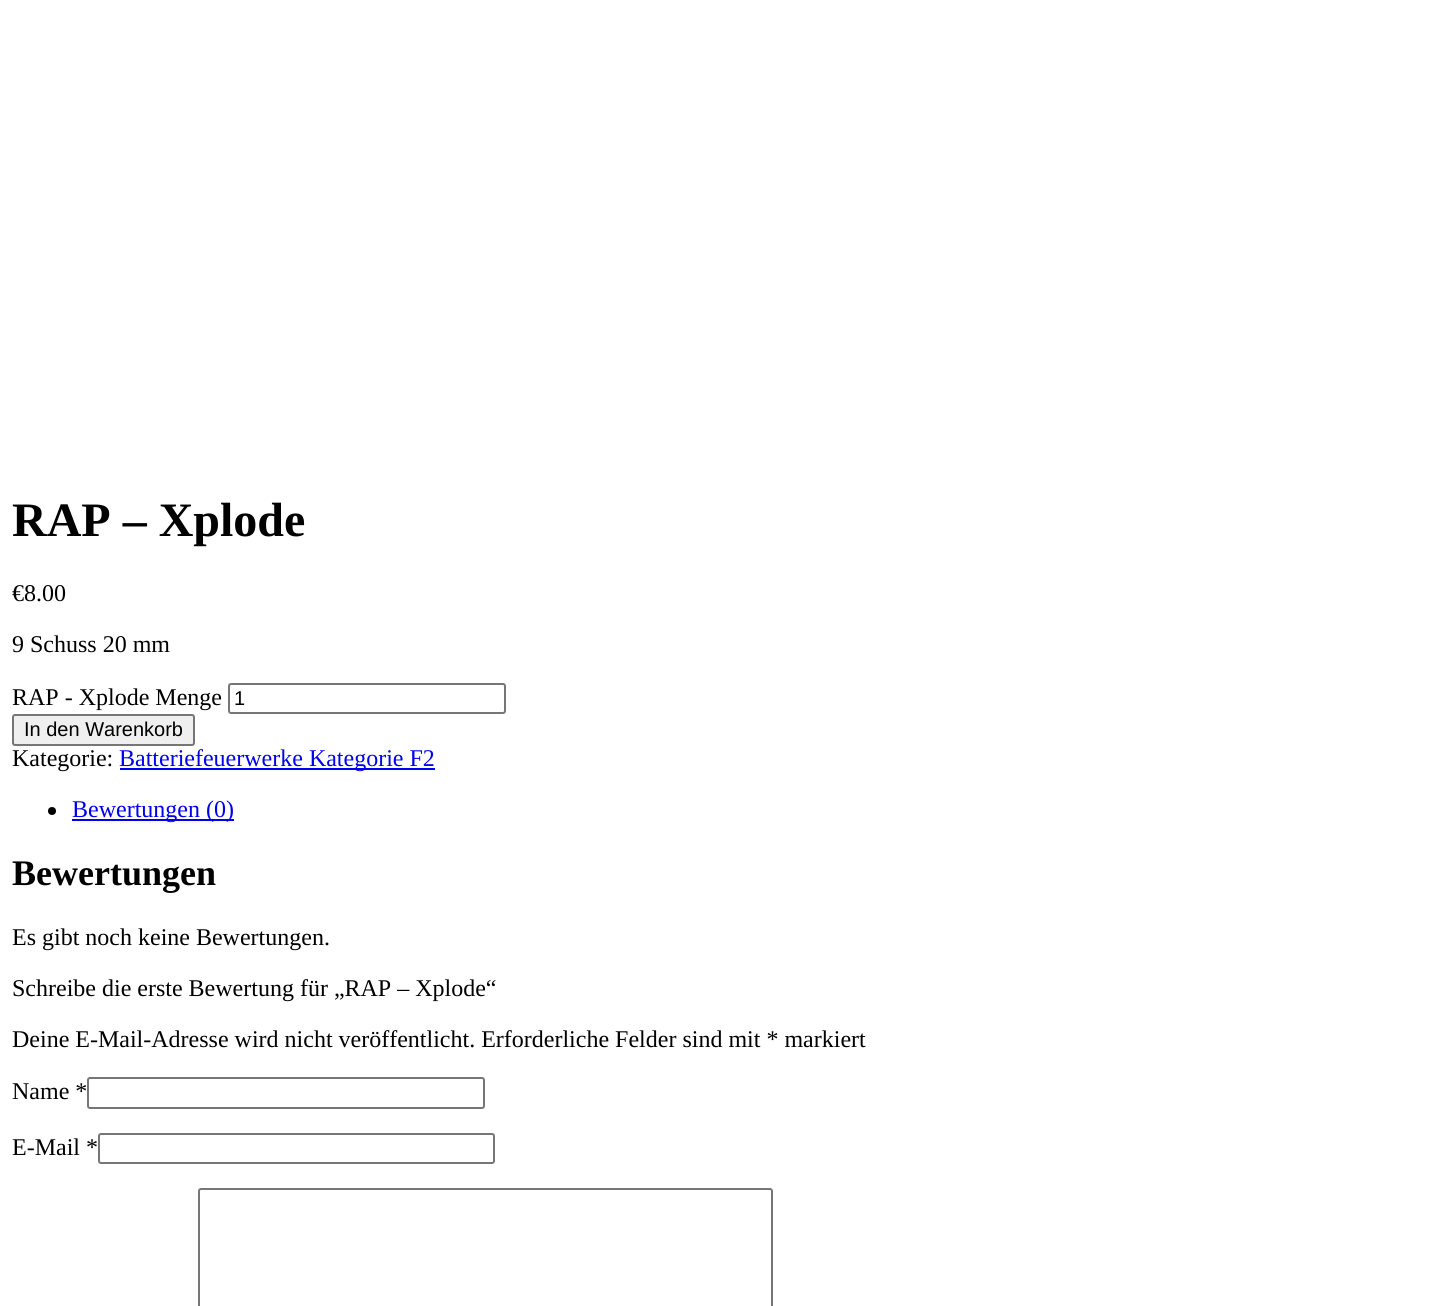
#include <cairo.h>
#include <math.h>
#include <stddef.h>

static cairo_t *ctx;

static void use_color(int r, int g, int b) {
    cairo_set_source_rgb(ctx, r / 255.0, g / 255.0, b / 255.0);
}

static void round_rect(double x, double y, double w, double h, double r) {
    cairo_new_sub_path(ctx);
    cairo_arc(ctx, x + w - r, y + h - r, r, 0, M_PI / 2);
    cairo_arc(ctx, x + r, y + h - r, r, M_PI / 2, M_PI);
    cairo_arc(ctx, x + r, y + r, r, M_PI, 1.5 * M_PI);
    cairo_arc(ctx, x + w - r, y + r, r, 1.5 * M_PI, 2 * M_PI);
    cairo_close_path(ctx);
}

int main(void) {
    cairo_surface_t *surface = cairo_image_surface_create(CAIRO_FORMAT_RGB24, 1453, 1306);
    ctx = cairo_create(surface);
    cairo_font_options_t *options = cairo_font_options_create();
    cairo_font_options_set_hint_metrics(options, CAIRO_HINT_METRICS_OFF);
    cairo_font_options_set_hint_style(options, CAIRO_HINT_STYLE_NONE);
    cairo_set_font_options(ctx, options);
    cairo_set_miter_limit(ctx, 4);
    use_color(255, 255, 255);
    cairo_paint(ctx);
    cairo_select_font_face(ctx, "Liberation Serif", CAIRO_FONT_SLANT_NORMAL, CAIRO_FONT_WEIGHT_BOLD);
    cairo_set_font_size(ctx, 48);
    use_color(0, 0, 0);
    cairo_move_to(ctx, 12, 536);
    cairo_show_text(ctx, "RAP – Xplode");
    cairo_select_font_face(ctx, "Liberation Serif", CAIRO_FONT_SLANT_NORMAL, CAIRO_FONT_WEIGHT_NORMAL);
    cairo_set_font_size(ctx, 24);
    cairo_move_to(ctx, 12, 601);
    cairo_show_text(ctx, "€8.00");
    cairo_move_to(ctx, 12, 652);
    cairo_show_text(ctx, "9 Schuss 20 mm");
    cairo_move_to(ctx, 12, 705);
    cairo_show_text(ctx, "RAP - Xplode Menge");
    round_rect(229, 684, 276, 29, 2);
    use_color(118, 118, 118);
    cairo_stroke(ctx);
    cairo_select_font_face(ctx, "Liberation Sans", CAIRO_FONT_SLANT_NORMAL, CAIRO_FONT_WEIGHT_NORMAL);
    cairo_set_font_size(ctx, 20);
    use_color(0, 0, 0);
    cairo_move_to(ctx, 234, 705);
    cairo_show_text(ctx, "1");
    use_color(239, 239, 239);
    round_rect(13, 715, 181, 30, 2);
    cairo_fill_preserve(ctx);
    use_color(118, 118, 118);
    cairo_stroke(ctx);
    use_color(0, 0, 0);
    cairo_move_to(ctx, 24, 736);
    cairo_show_text(ctx, "In den Warenkorb");
    cairo_select_font_face(ctx, "Liberation Serif", CAIRO_FONT_SLANT_NORMAL, CAIRO_FONT_WEIGHT_NORMAL);
    cairo_set_font_size(ctx, 24);
    cairo_move_to(ctx, 12, 766);
    cairo_show_text(ctx, "Kategorie:");
    use_color(0, 0, 238);
    cairo_rectangle(ctx, 120, 768, 315, 2);
    cairo_fill(ctx);
    cairo_move_to(ctx, 119, 766);
    cairo_show_text(ctx, "Batteriefeuerwerke Kategorie F2");
    use_color(0, 0, 0);
    cairo_new_path(ctx);
    cairo_arc(ctx, 52, 811, 4, 0, 2 * M_PI);
    cairo_fill(ctx);
    use_color(0, 0, 238);
    cairo_rectangle(ctx, 72, 819, 162, 2);
    cairo_fill(ctx);
    cairo_move_to(ctx, 72, 817);
    cairo_show_text(ctx, "Bewertungen (0)");
    cairo_select_font_face(ctx, "Liberation Serif", CAIRO_FONT_SLANT_NORMAL, CAIRO_FONT_WEIGHT_BOLD);
    cairo_set_font_size(ctx, 36);
    use_color(0, 0, 0);
    cairo_move_to(ctx, 12, 885);
    cairo_show_text(ctx, "Bewertungen");
    cairo_select_font_face(ctx, "Liberation Serif", CAIRO_FONT_SLANT_NORMAL, CAIRO_FONT_WEIGHT_NORMAL);
    cairo_set_font_size(ctx, 24);
    cairo_move_to(ctx, 12, 945);
    cairo_show_text(ctx, "Es gibt noch keine Bewertungen.");
    cairo_move_to(ctx, 12, 996);
    cairo_show_text(ctx, "Schreibe die erste Bewertung für „RAP – Xplode“");
    cairo_move_to(ctx, 12, 1047);
    cairo_show_text(ctx, "Deine E-Mail-Adresse wird nicht veröffentlicht. Erforderliche Felder sind mit * markiert");
    cairo_move_to(ctx, 12, 1099);
    cairo_show_text(ctx, "Name *");
    round_rect(88, 1078, 396, 30, 2);
    use_color(118, 118, 118);
    cairo_stroke(ctx);
    use_color(0, 0, 0);
    cairo_move_to(ctx, 12, 1155);
    cairo_show_text(ctx, "E-Mail *");
    round_rect(99, 1134, 395, 29, 2);
    use_color(118, 118, 118);
    cairo_stroke(ctx);
    round_rect(199, 1189, 573, 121, 2);
    cairo_stroke(ctx);
    cairo_surface_write_to_png(surface, "result.png");
    cairo_font_options_destroy(options);
    cairo_destroy(ctx);
    cairo_surface_destroy(surface);
    return 0;
}
